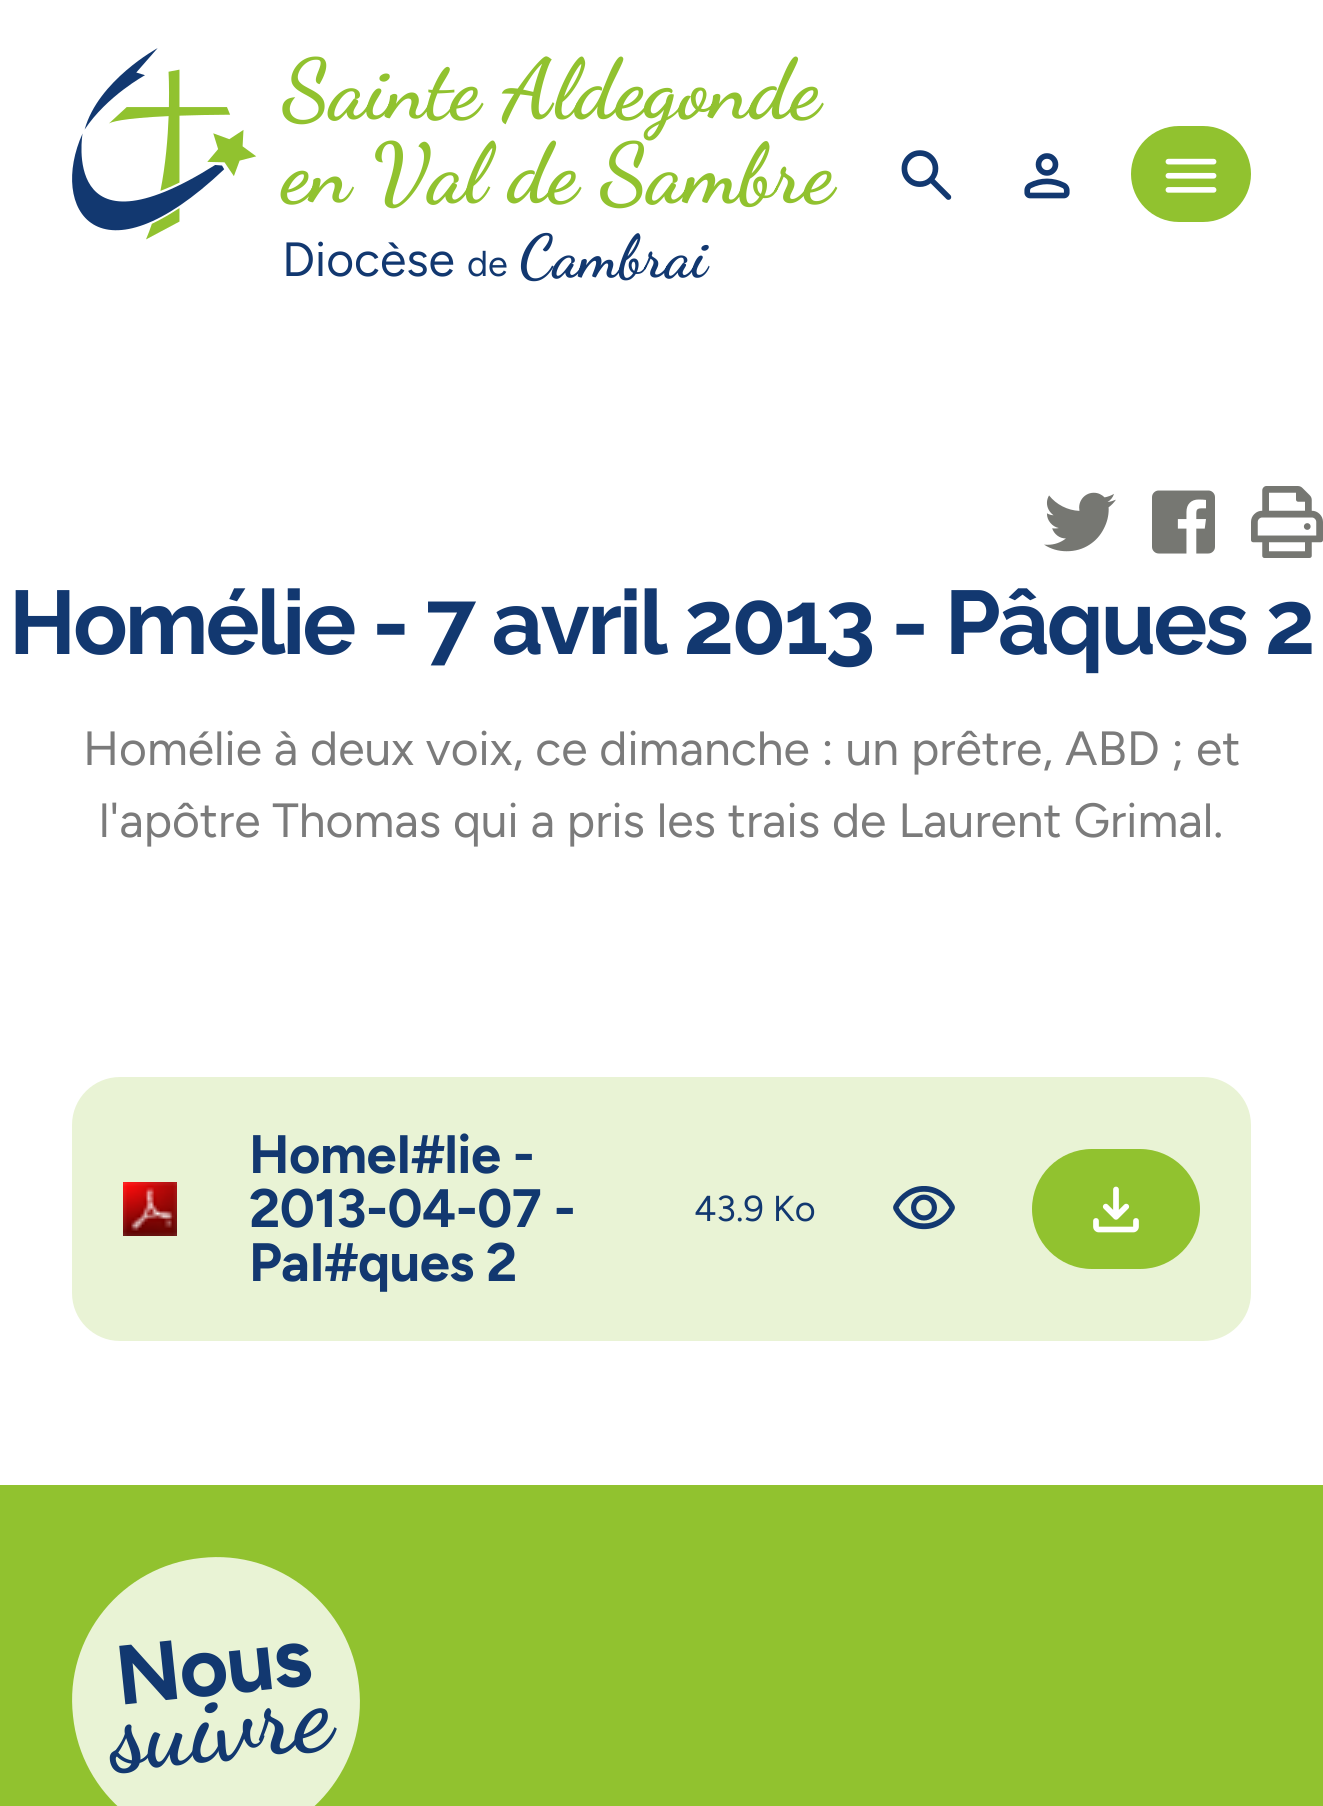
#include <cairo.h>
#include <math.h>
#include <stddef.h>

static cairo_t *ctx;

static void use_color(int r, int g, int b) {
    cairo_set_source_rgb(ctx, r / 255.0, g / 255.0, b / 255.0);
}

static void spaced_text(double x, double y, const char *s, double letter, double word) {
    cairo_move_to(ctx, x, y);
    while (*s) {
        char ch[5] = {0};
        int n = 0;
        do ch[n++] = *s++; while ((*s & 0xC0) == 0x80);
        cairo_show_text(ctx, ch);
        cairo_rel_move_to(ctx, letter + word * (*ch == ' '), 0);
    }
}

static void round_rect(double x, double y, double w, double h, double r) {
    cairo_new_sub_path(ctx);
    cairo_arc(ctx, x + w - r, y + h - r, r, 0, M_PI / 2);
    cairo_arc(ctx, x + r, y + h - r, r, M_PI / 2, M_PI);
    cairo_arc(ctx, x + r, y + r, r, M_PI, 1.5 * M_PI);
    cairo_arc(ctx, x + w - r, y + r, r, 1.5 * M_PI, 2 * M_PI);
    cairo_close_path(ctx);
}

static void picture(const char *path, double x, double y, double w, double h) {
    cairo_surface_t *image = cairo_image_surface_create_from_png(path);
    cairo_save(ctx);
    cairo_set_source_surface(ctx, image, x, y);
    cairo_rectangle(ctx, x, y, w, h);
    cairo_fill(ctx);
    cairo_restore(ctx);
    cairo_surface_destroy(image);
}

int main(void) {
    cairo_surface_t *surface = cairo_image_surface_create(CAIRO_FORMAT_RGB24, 1323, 1806);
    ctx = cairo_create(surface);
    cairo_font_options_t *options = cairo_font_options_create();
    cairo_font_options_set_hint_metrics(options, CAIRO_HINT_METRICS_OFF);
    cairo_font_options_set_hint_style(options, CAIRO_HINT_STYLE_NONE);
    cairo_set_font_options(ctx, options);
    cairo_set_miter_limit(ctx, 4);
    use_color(255, 255, 255);
    cairo_paint(ctx);
    picture("img1.png", 72, 48, 185, 192);
    cairo_select_font_face(ctx, "Dancing Script", CAIRO_FONT_SLANT_NORMAL, CAIRO_FONT_WEIGHT_BOLD);
    cairo_set_font_size(ctx, 84);
    use_color(145, 194, 47);
    cairo_move_to(ctx, 282, 117);
    cairo_show_text(ctx, "Sainte Aldegonde");
    cairo_move_to(ctx, 282, 201);
    cairo_show_text(ctx, "en Val de Sambre");
    cairo_select_font_face(ctx, "Figtree", CAIRO_FONT_SLANT_NORMAL, CAIRO_FONT_WEIGHT_NORMAL);
    cairo_set_font_size(ctx, 48);
    use_color(18, 56, 112);
    cairo_move_to(ctx, 282, 276);
    cairo_show_text(ctx, "Diocèse");
    cairo_set_font_size(ctx, 36);
    cairo_move_to(ctx, 467, 276);
    cairo_show_text(ctx, "de");
    cairo_select_font_face(ctx, "Dancing Script", CAIRO_FONT_SLANT_NORMAL, CAIRO_FONT_WEIGHT_BOLD);
    cairo_set_font_size(ctx, 60);
    cairo_move_to(ctx, 519, 276);
    cairo_show_text(ctx, "Cambrai");
    picture("img2.png", 901, 150, 51, 50);
    picture("img3.png", 1024, 153, 46, 46);
    use_color(145, 194, 47);
    round_rect(1131, 126, 120, 96, 48);
    cairo_fill(ctx);
    picture("img4.png", 1165, 158, 52, 35);
    picture("img5.png", 1044, 492, 72, 60);
    picture("img6.png", 1152, 490, 63, 64);
    picture("img7.png", 1251, 486, 72, 72);
    cairo_select_font_face(ctx, "Raleway Thin", CAIRO_FONT_SLANT_NORMAL, CAIRO_FONT_WEIGHT_NORMAL);
    cairo_set_font_size(ctx, 90);
    use_color(18, 56, 112);
    spaced_text(9, 654, "Homélie - 7 avril 2013 - Pâques 2", -2.9, 0);
    cairo_select_font_face(ctx, "Figtree", CAIRO_FONT_SLANT_NORMAL, CAIRO_FONT_WEIGHT_NORMAL);
    cairo_set_font_size(ctx, 48);
    use_color(123, 123, 123);
    cairo_move_to(ctx, 83, 765);
    cairo_show_text(ctx, "Homélie à deux voix, ce dimanche : un prêtre, ABD ; et");
    cairo_move_to(ctx, 99, 837);
    cairo_show_text(ctx, "l'apôtre Thomas qui a pris les trais de Laurent Grimal.");
    use_color(233, 243, 213);
    round_rect(73.5, 1078.5, 1176, 261, 46.5);
    cairo_fill_preserve(ctx);
    cairo_set_line_width(ctx, 3);
    cairo_stroke(ctx);
    picture("img8.png", 123, 1182, 54, 54);
    cairo_select_font_face(ctx, "Figtree", CAIRO_FONT_SLANT_NORMAL, CAIRO_FONT_WEIGHT_BOLD);
    cairo_set_font_size(ctx, 54);
    use_color(18, 56, 112);
    spaced_text(249, 1173, "HomeI#lie -", -0.5, 0);
    spaced_text(249, 1227, "2013-04-07 -", -0.5, 0);
    spaced_text(249, 1281, "PaI#ques 2", -0.5, 0);
    cairo_select_font_face(ctx, "Figtree", CAIRO_FONT_SLANT_NORMAL, CAIRO_FONT_WEIGHT_NORMAL);
    cairo_set_font_size(ctx, 36);
    cairo_move_to(ctx, 694, 1221);
    cairo_show_text(ctx, "43.9 Ko");
    picture("img9.png", 893, 1186, 62, 44);
    use_color(145, 194, 47);
    round_rect(1032, 1149, 168, 120, 60);
    cairo_fill(ctx);
    picture("img10.png", 1093, 1186, 46, 47);
    cairo_rectangle(ctx, 0, 1485, 1323, 321);
    cairo_fill(ctx);
    use_color(233, 243, 213);
    cairo_new_path(ctx);
    cairo_move_to(ctx, 201, 1558);
    cairo_curve_to(ctx, 280, 1549, 351, 1607, 359, 1686);
    cairo_curve_to(ctx, 368, 1765, 310, 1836, 231, 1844);
    cairo_curve_to(ctx, 152, 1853, 81, 1795, 73, 1716);
    cairo_curve_to(ctx, 64, 1637, 122, 1566, 201, 1558);
    cairo_close_path(ctx);
    cairo_fill(ctx);
    cairo_select_font_face(ctx, "Figtree", CAIRO_FONT_SLANT_NORMAL, CAIRO_FONT_WEIGHT_BOLD);
    cairo_set_font_size(ctx, 84);
    use_color(18, 56, 112);
    cairo_save(ctx);
    cairo_translate(ctx, 119, 1705);
    cairo_rotate(ctx, -6 * M_PI / 180);
    spaced_text(0, 0, "Nous", -1.5, 0);
    cairo_restore(ctx);
    cairo_select_font_face(ctx, "Dancing Script", CAIRO_FONT_SLANT_NORMAL, CAIRO_FONT_WEIGHT_BOLD);
    cairo_set_font_size(ctx, 108);
    cairo_save(ctx);
    cairo_translate(ctx, 113, 1769);
    cairo_rotate(ctx, -6 * M_PI / 180);
    spaced_text(0, 0, "suivre", -2, 0);
    cairo_restore(ctx);
    cairo_surface_write_to_png(surface, "result.png");
    cairo_font_options_destroy(options);
    cairo_destroy(ctx);
    cairo_surface_destroy(surface);
    return 0;
}
